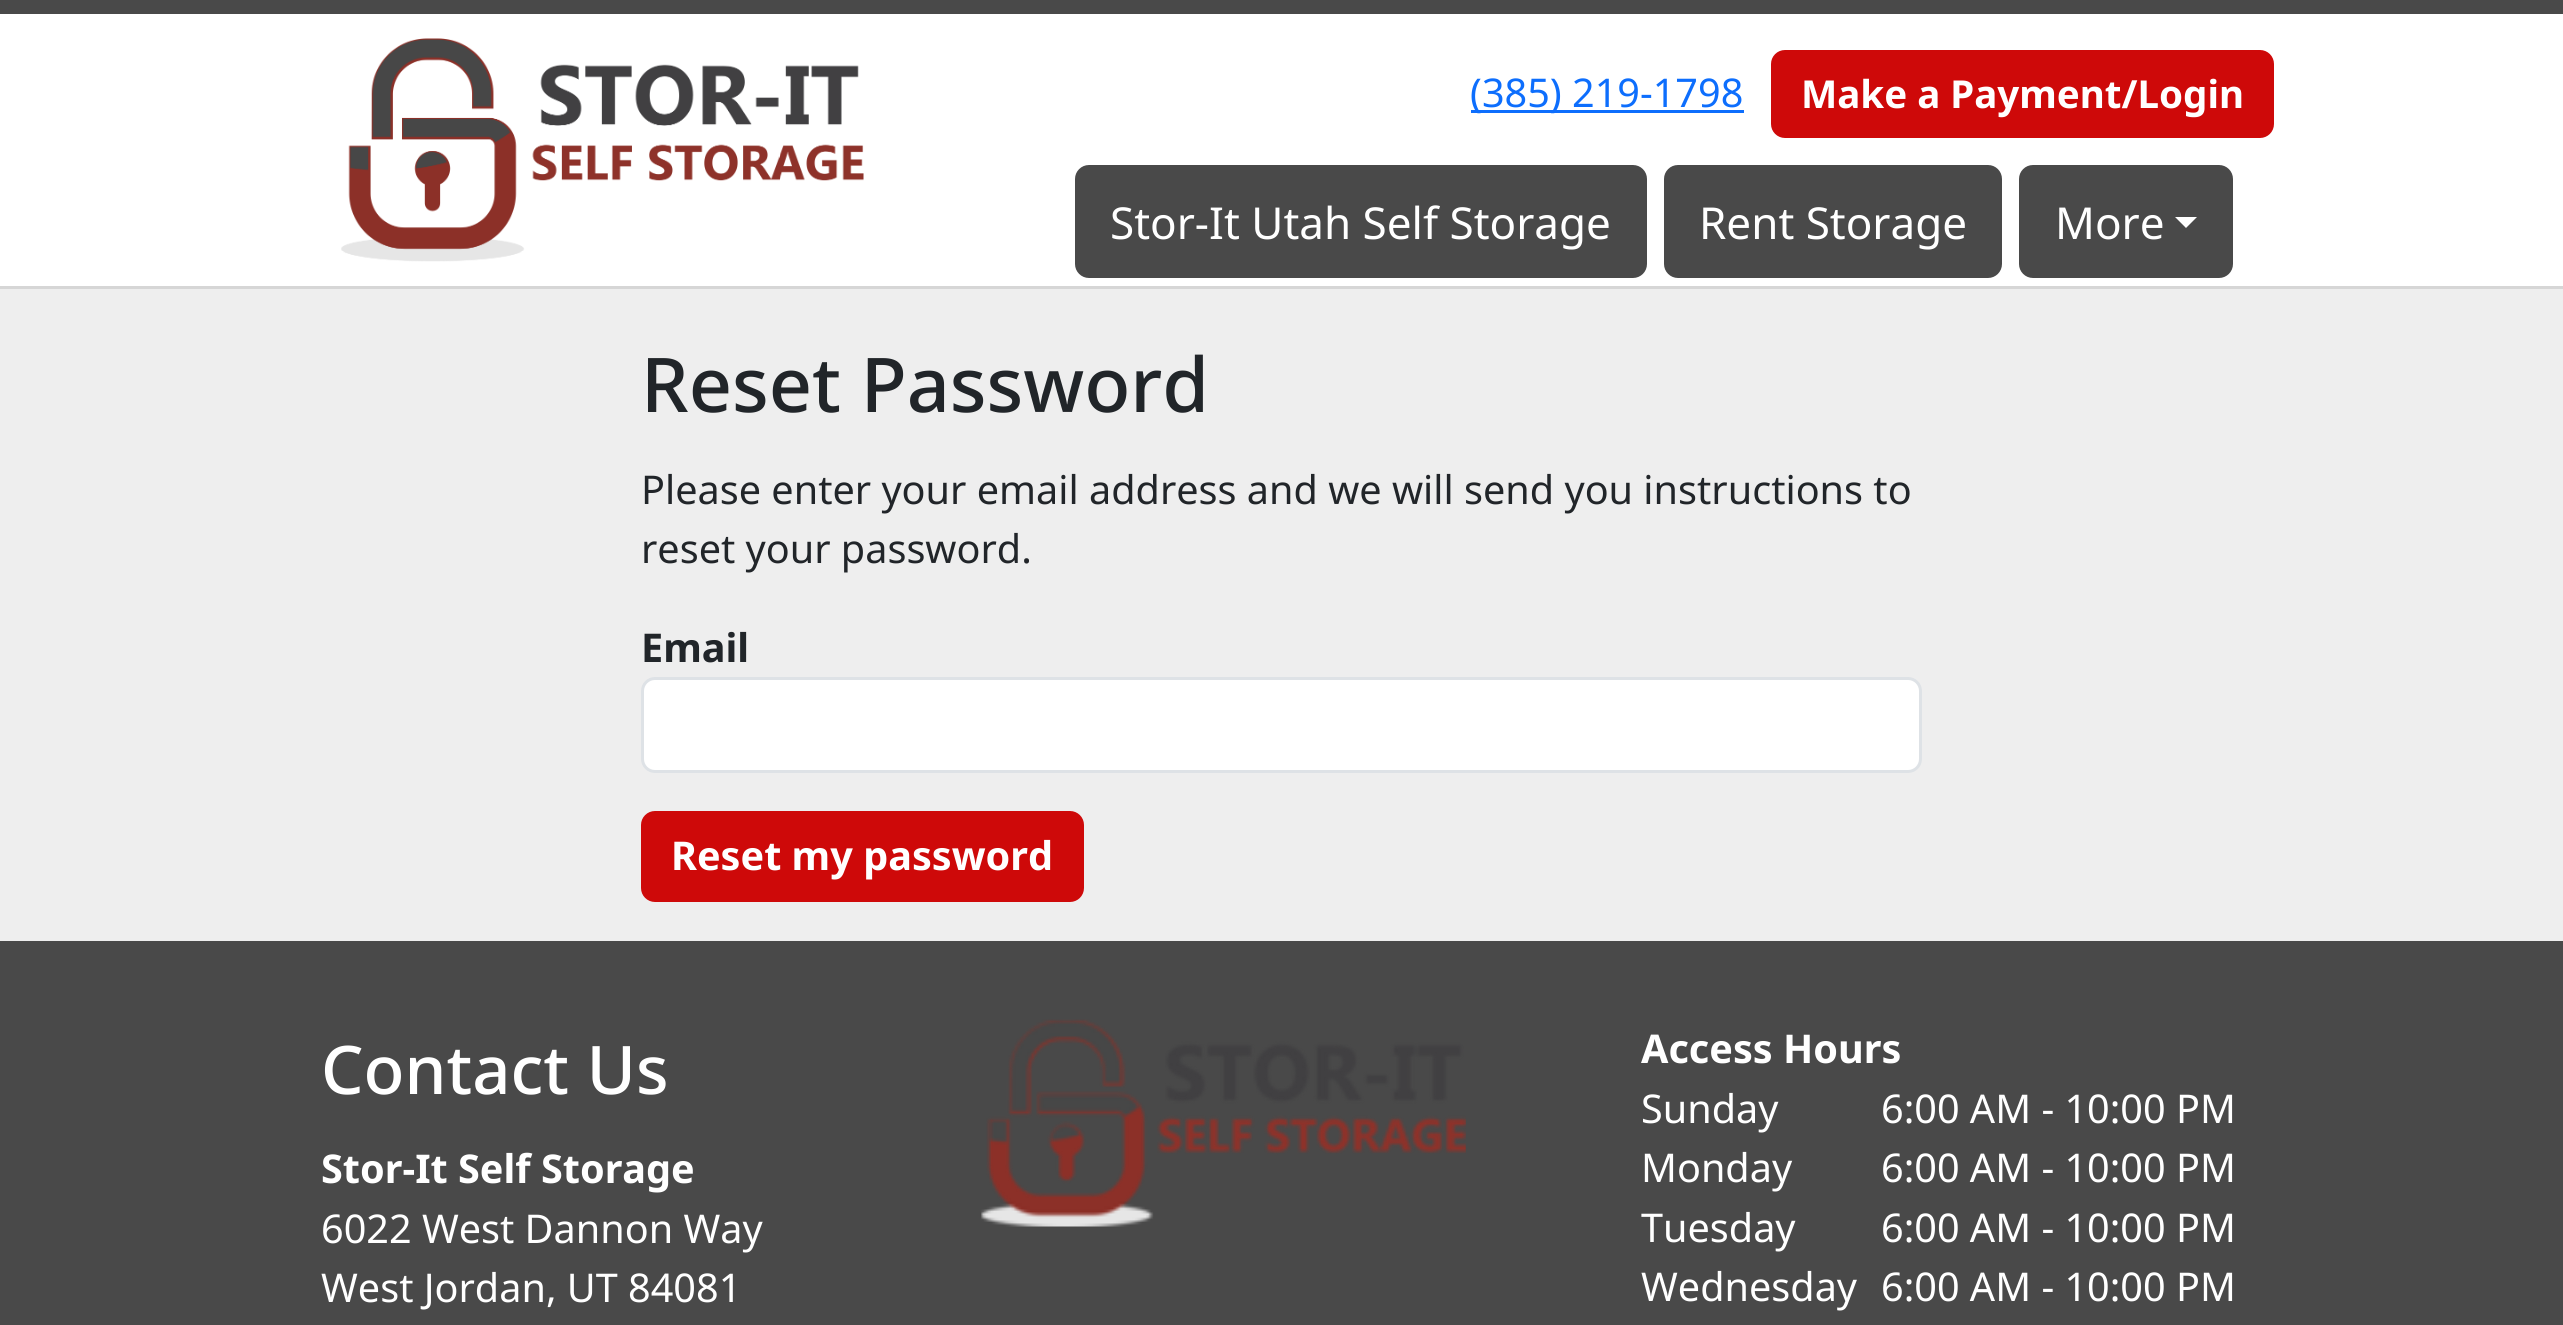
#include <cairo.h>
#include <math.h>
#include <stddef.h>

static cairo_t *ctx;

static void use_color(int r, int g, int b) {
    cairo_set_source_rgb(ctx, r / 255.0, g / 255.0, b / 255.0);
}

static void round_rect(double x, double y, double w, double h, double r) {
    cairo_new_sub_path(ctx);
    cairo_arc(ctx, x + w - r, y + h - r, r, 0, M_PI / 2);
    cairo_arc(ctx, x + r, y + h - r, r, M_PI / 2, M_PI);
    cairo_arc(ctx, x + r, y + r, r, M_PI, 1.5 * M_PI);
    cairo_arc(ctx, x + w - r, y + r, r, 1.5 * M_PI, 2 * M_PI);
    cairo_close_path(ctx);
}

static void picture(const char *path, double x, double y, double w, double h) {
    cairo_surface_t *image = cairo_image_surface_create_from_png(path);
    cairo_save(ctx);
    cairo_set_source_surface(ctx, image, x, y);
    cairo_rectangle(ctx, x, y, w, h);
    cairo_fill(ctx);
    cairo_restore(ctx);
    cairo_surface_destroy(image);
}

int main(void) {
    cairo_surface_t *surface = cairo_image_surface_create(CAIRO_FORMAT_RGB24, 2563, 1325);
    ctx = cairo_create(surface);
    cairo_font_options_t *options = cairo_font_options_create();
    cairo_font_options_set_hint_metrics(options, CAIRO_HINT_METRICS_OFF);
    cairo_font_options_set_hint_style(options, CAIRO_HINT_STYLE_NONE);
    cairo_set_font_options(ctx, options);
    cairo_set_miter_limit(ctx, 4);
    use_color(238, 238, 238);
    cairo_paint(ctx);
    use_color(214, 214, 214);
    cairo_rectangle(ctx, 0, 286, 2563, 3);
    cairo_fill(ctx);
    use_color(255, 255, 255);
    cairo_rectangle(ctx, 0, 14, 2563, 272);
    cairo_fill(ctx);
    use_color(73, 73, 73);
    cairo_rectangle(ctx, 0, 0, 2563, 14);
    cairo_fill(ctx);
    picture("img1.png", 341, 38, 523, 224);
    use_color(13, 110, 253);
    cairo_rectangle(ctx, 1471, 110, 273, 3);
    cairo_fill(ctx);
    cairo_select_font_face(ctx, "Noto Sans", CAIRO_FONT_SLANT_NORMAL, CAIRO_FONT_WEIGHT_NORMAL);
    cairo_set_font_size(ctx, 39.6);
    cairo_move_to(ctx, 1470, 107);
    cairo_show_text(ctx, "(385) 219-1798");
    use_color(206, 9, 9);
    round_rect(1771, 50, 503, 88, 14);
    cairo_fill(ctx);
    cairo_select_font_face(ctx, "Noto Sans", CAIRO_FONT_SLANT_NORMAL, CAIRO_FONT_WEIGHT_BOLD);
    cairo_set_font_size(ctx, 38.5);
    use_color(255, 255, 255);
    cairo_move_to(ctx, 1801, 108);
    cairo_show_text(ctx, "Make a Payment/Login");
    use_color(73, 73, 73);
    round_rect(1075, 165, 572, 113, 14);
    cairo_fill(ctx);
    cairo_select_font_face(ctx, "Noto Sans", CAIRO_FONT_SLANT_NORMAL, CAIRO_FONT_WEIGHT_NORMAL);
    cairo_set_font_size(ctx, 44);
    use_color(255, 255, 255);
    cairo_move_to(ctx, 1110, 239);
    cairo_show_text(ctx, "Stor-It Utah Self Storage");
    use_color(73, 73, 73);
    round_rect(1664, 165, 338, 113, 14);
    cairo_fill(ctx);
    use_color(255, 255, 255);
    cairo_move_to(ctx, 1699, 239);
    cairo_show_text(ctx, "Rent Storage");
    use_color(73, 73, 73);
    round_rect(2019, 165, 214, 113, 14);
    cairo_fill(ctx);
    use_color(255, 255, 255);
    cairo_move_to(ctx, 2055, 239);
    cairo_show_text(ctx, "More");
    cairo_new_path(ctx);
    cairo_move_to(ctx, 2175, 217);
    cairo_line_to(ctx, 2197, 217);
    cairo_line_to(ctx, 2186, 228);
    cairo_close_path(ctx);
    cairo_fill(ctx);
    cairo_select_font_face(ctx, "Noto Sans Medium", CAIRO_FONT_SLANT_NORMAL, CAIRO_FONT_WEIGHT_NORMAL);
    cairo_set_font_size(ctx, 75.5);
    use_color(33, 37, 41);
    cairo_move_to(ctx, 641, 412);
    cairo_show_text(ctx, "Reset Password");
    cairo_select_font_face(ctx, "Noto Sans", CAIRO_FONT_SLANT_NORMAL, CAIRO_FONT_WEIGHT_NORMAL);
    cairo_set_font_size(ctx, 39.6);
    cairo_move_to(ctx, 641, 504);
    cairo_show_text(ctx, "Please enter your email address and we will send you instructions to");
    cairo_move_to(ctx, 641, 563);
    cairo_show_text(ctx, "reset your password.");
    cairo_select_font_face(ctx, "Noto Sans", CAIRO_FONT_SLANT_NORMAL, CAIRO_FONT_WEIGHT_BOLD);
    cairo_move_to(ctx, 641, 662);
    cairo_show_text(ctx, "Email");
    use_color(255, 255, 255);
    round_rect(642.5, 678.5, 1278, 93, 12.5);
    cairo_fill_preserve(ctx);
    use_color(222, 226, 230);
    cairo_set_line_width(ctx, 3);
    cairo_stroke(ctx);
    use_color(206, 9, 9);
    round_rect(641, 811, 443, 91, 14);
    cairo_fill(ctx);
    use_color(255, 255, 255);
    cairo_move_to(ctx, 671, 870);
    cairo_show_text(ctx, "Reset my password");
    use_color(73, 73, 73);
    cairo_rectangle(ctx, 0, 941, 2563, 384);
    cairo_fill(ctx);
    cairo_select_font_face(ctx, "Noto Sans Medium", CAIRO_FONT_SLANT_NORMAL, CAIRO_FONT_WEIGHT_NORMAL);
    cairo_set_font_size(ctx, 67);
    use_color(255, 255, 255);
    cairo_move_to(ctx, 321, 1094);
    cairo_show_text(ctx, "Contact Us");
    cairo_select_font_face(ctx, "Noto Sans", CAIRO_FONT_SLANT_NORMAL, CAIRO_FONT_WEIGHT_BOLD);
    cairo_set_font_size(ctx, 39.6);
    cairo_move_to(ctx, 321, 1183);
    cairo_show_text(ctx, "Stor-It Self Storage");
    cairo_select_font_face(ctx, "Noto Sans", CAIRO_FONT_SLANT_NORMAL, CAIRO_FONT_WEIGHT_NORMAL);
    cairo_move_to(ctx, 321, 1243);
    cairo_show_text(ctx, "6022 West Dannon Way");
    cairo_move_to(ctx, 321, 1302);
    cairo_show_text(ctx, "West Jordan, UT 84081");
    picture("img2.png", 981, 1019, 485, 208);
    cairo_select_font_face(ctx, "Noto Sans", CAIRO_FONT_SLANT_NORMAL, CAIRO_FONT_WEIGHT_BOLD);
    cairo_move_to(ctx, 1641, 1063);
    cairo_show_text(ctx, "Access Hours");
    cairo_select_font_face(ctx, "Noto Sans", CAIRO_FONT_SLANT_NORMAL, CAIRO_FONT_WEIGHT_NORMAL);
    cairo_move_to(ctx, 1641, 1123);
    cairo_show_text(ctx, "Sunday");
    cairo_move_to(ctx, 1881, 1123);
    cairo_show_text(ctx, "6:00 AM - 10:00 PM");
    cairo_move_to(ctx, 1641, 1182);
    cairo_show_text(ctx, "Monday");
    cairo_move_to(ctx, 1881, 1182);
    cairo_show_text(ctx, "6:00 AM - 10:00 PM");
    cairo_move_to(ctx, 1641, 1242);
    cairo_show_text(ctx, "Tuesday");
    cairo_move_to(ctx, 1881, 1242);
    cairo_show_text(ctx, "6:00 AM - 10:00 PM");
    cairo_move_to(ctx, 1641, 1301);
    cairo_show_text(ctx, "Wednesday");
    cairo_move_to(ctx, 1881, 1301);
    cairo_show_text(ctx, "6:00 AM - 10:00 PM");
    cairo_surface_write_to_png(surface, "result.png");
    cairo_font_options_destroy(options);
    cairo_destroy(ctx);
    cairo_surface_destroy(surface);
    return 0;
}
